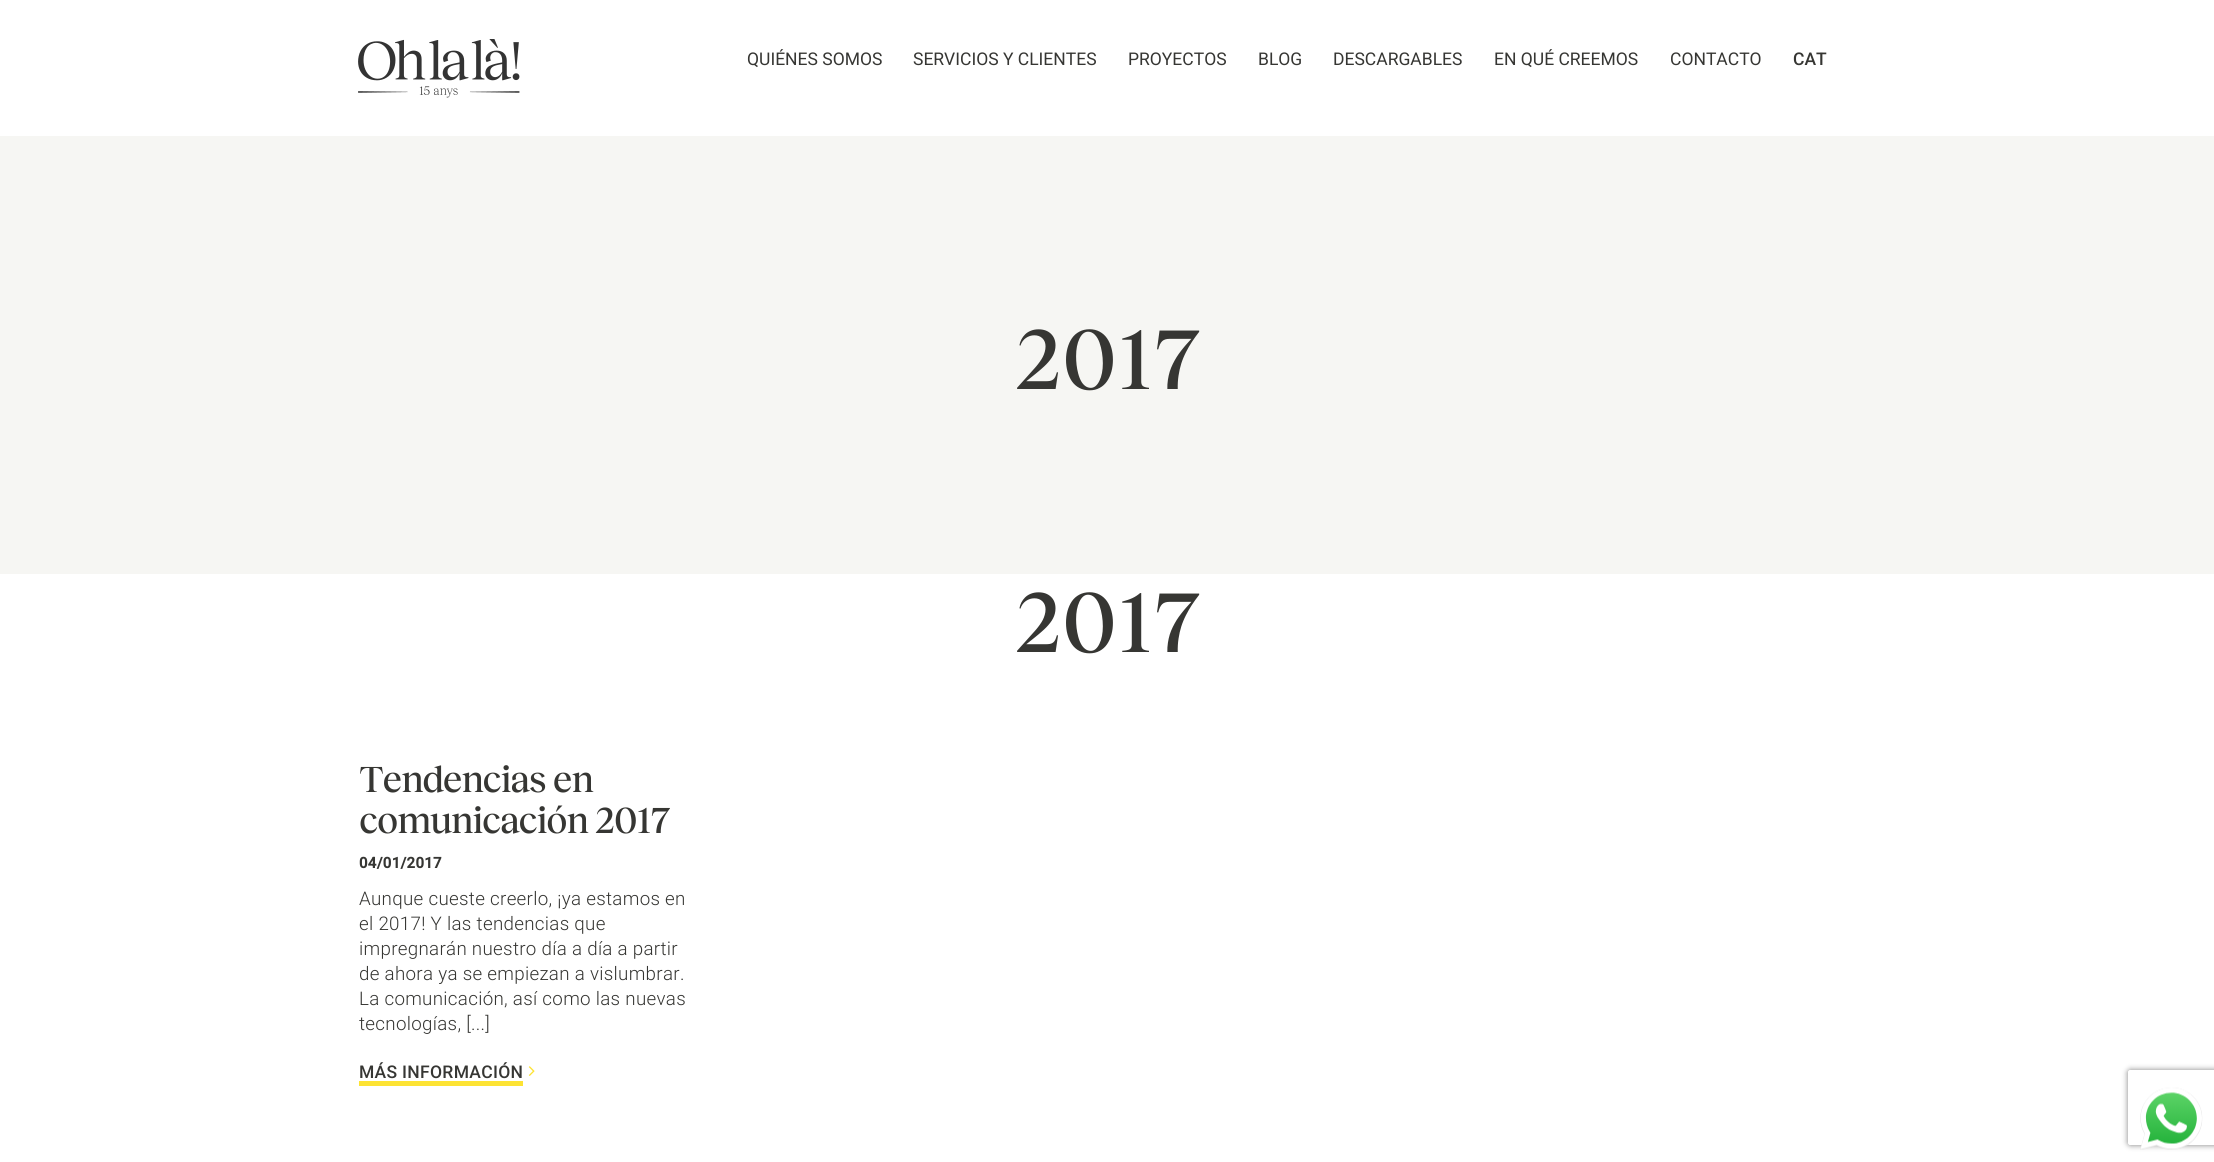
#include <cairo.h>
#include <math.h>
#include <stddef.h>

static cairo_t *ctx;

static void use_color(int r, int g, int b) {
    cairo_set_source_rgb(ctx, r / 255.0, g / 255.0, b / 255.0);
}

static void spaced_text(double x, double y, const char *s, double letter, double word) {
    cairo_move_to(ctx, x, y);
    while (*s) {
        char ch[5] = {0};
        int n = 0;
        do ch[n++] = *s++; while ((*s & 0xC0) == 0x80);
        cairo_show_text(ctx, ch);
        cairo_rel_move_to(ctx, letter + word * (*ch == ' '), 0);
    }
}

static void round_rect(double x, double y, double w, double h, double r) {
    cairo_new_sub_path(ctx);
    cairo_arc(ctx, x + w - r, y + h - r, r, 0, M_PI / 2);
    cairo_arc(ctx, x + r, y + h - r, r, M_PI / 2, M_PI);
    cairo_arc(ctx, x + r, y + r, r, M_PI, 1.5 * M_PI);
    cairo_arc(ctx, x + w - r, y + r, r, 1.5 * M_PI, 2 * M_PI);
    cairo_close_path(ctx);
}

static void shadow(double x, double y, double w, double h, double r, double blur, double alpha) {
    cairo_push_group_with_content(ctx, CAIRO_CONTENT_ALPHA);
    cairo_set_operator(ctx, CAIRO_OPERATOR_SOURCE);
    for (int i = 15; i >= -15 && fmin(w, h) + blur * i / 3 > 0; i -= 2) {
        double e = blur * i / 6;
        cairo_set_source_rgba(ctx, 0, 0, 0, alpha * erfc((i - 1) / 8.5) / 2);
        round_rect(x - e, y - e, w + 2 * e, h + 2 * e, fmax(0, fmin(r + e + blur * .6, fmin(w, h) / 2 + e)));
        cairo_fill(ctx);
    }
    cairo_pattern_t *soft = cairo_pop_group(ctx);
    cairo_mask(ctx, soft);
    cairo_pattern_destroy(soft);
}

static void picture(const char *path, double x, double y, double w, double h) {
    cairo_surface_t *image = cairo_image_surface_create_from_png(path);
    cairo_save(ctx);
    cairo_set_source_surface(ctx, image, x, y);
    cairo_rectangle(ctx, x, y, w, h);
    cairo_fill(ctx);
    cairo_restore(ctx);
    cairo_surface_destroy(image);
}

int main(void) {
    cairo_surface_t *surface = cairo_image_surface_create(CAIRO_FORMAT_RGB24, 2214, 1162);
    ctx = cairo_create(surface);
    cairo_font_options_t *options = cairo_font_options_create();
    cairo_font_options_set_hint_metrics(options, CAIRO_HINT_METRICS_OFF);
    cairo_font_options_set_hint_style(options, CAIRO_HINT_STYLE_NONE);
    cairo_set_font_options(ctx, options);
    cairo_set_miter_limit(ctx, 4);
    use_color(255, 255, 255);
    cairo_paint(ctx);
    picture("img1.png", 358, 39, 162, 59);
    cairo_select_font_face(ctx, "Roboto", CAIRO_FONT_SLANT_NORMAL, CAIRO_FONT_WEIGHT_NORMAL);
    cairo_set_font_size(ctx, 17.5);
    use_color(54, 54, 51);
    cairo_move_to(ctx, 747, 65);
    cairo_show_text(ctx, "QUIÉNES SOMOS");
    cairo_move_to(ctx, 913, 65);
    cairo_show_text(ctx, "SERVICIOS Y CLIENTES");
    cairo_move_to(ctx, 1128, 65);
    cairo_show_text(ctx, "PROYECTOS");
    cairo_move_to(ctx, 1258, 65);
    cairo_show_text(ctx, "BLOG");
    cairo_move_to(ctx, 1333, 65);
    cairo_show_text(ctx, "DESCARGABLES");
    cairo_move_to(ctx, 1494, 65);
    cairo_show_text(ctx, "EN QUÉ CREEMOS");
    cairo_move_to(ctx, 1670, 65);
    cairo_show_text(ctx, "CONTACTO");
    cairo_select_font_face(ctx, "Roboto Medium", CAIRO_FONT_SLANT_NORMAL, CAIRO_FONT_WEIGHT_NORMAL);
    cairo_move_to(ctx, 1793, 65);
    cairo_show_text(ctx, "CAT");
    use_color(246, 246, 243);
    cairo_rectangle(ctx, 0, 136, 2214, 438);
    cairo_fill(ctx);
    cairo_select_font_face(ctx, "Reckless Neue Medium", CAIRO_FONT_SLANT_NORMAL, CAIRO_FONT_WEIGHT_NORMAL);
    cairo_set_font_size(ctx, 87.5);
    use_color(54, 54, 51);
    spaced_text(1015, 389, "2017", 0.3, 0);
    spaced_text(1015, 652, "2017", 0.3, 0);
    cairo_set_font_size(ctx, 37.5);
    spaced_text(359, 792, "Tendencias en", -1.25, 0);
    spaced_text(359, 833, "comunicación 2017", -1.25, 0);
    cairo_select_font_face(ctx, "Roboto", CAIRO_FONT_SLANT_NORMAL, CAIRO_FONT_WEIGHT_BOLD);
    cairo_set_font_size(ctx, 15);
    spaced_text(359, 868, "04/01/2017", 0.3, 0);
    cairo_select_font_face(ctx, "Roboto Light", CAIRO_FONT_SLANT_NORMAL, CAIRO_FONT_WEIGHT_NORMAL);
    cairo_set_font_size(ctx, 18.75);
    spaced_text(359, 905, "Aunque cueste creerlo, ¡ya estamos en", 0.3, 0);
    spaced_text(359, 930, "el 2017! Y las tendencias que", 0.3, 0);
    spaced_text(359, 955, "impregnarán nuestro día a día a partir", 0.3, 0);
    spaced_text(359, 980, "de ahora ya se empiezan a vislumbrar.", 0.3, 0);
    spaced_text(359, 1005, "La comunicación, así como las nuevas", 0.3, 0);
    spaced_text(359, 1030, "tecnologías, [...]", 0.3, 0);
    use_color(253, 227, 51);
    cairo_rectangle(ctx, 359, 1081, 164, 5);
    cairo_fill(ctx);
    cairo_select_font_face(ctx, "Roboto Medium", CAIRO_FONT_SLANT_NORMAL, CAIRO_FONT_WEIGHT_NORMAL);
    cairo_set_font_size(ctx, 17.5);
    use_color(54, 54, 51);
    spaced_text(359, 1078, "MÁS INFORMACIÓN", 0.3, 0);
    picture("img2.png", 528, 1066, 7, 10);
    cairo_save(ctx);
    cairo_set_fill_rule(ctx, CAIRO_FILL_RULE_EVEN_ODD);
    cairo_new_path(ctx);
    cairo_move_to(ctx, 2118, 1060);
    cairo_line_to(ctx, 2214, 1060);
    cairo_line_to(ctx, 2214, 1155);
    cairo_line_to(ctx, 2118, 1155);
    cairo_close_path(ctx);
    cairo_move_to(ctx, 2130.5, 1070);
    cairo_line_to(ctx, 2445.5, 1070);
    cairo_curve_to(ctx, 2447, 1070, 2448, 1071, 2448, 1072.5);
    cairo_line_to(ctx, 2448, 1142.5);
    cairo_curve_to(ctx, 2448, 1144, 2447, 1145, 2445.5, 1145);
    cairo_line_to(ctx, 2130.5, 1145);
    cairo_curve_to(ctx, 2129, 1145, 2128, 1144, 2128, 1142.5);
    cairo_line_to(ctx, 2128, 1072.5);
    cairo_curve_to(ctx, 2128, 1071, 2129, 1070, 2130.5, 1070);
    cairo_close_path(ctx);
    cairo_clip(ctx);
    use_color(128, 128, 128);
    shadow(2128, 1070, 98, 75, 2.5, 3, 1);
    cairo_restore(ctx);
    picture("img3.png", 2140, 1087, 63, 63);
    cairo_surface_write_to_png(surface, "result.png");
    cairo_font_options_destroy(options);
    cairo_destroy(ctx);
    cairo_surface_destroy(surface);
    return 0;
}
